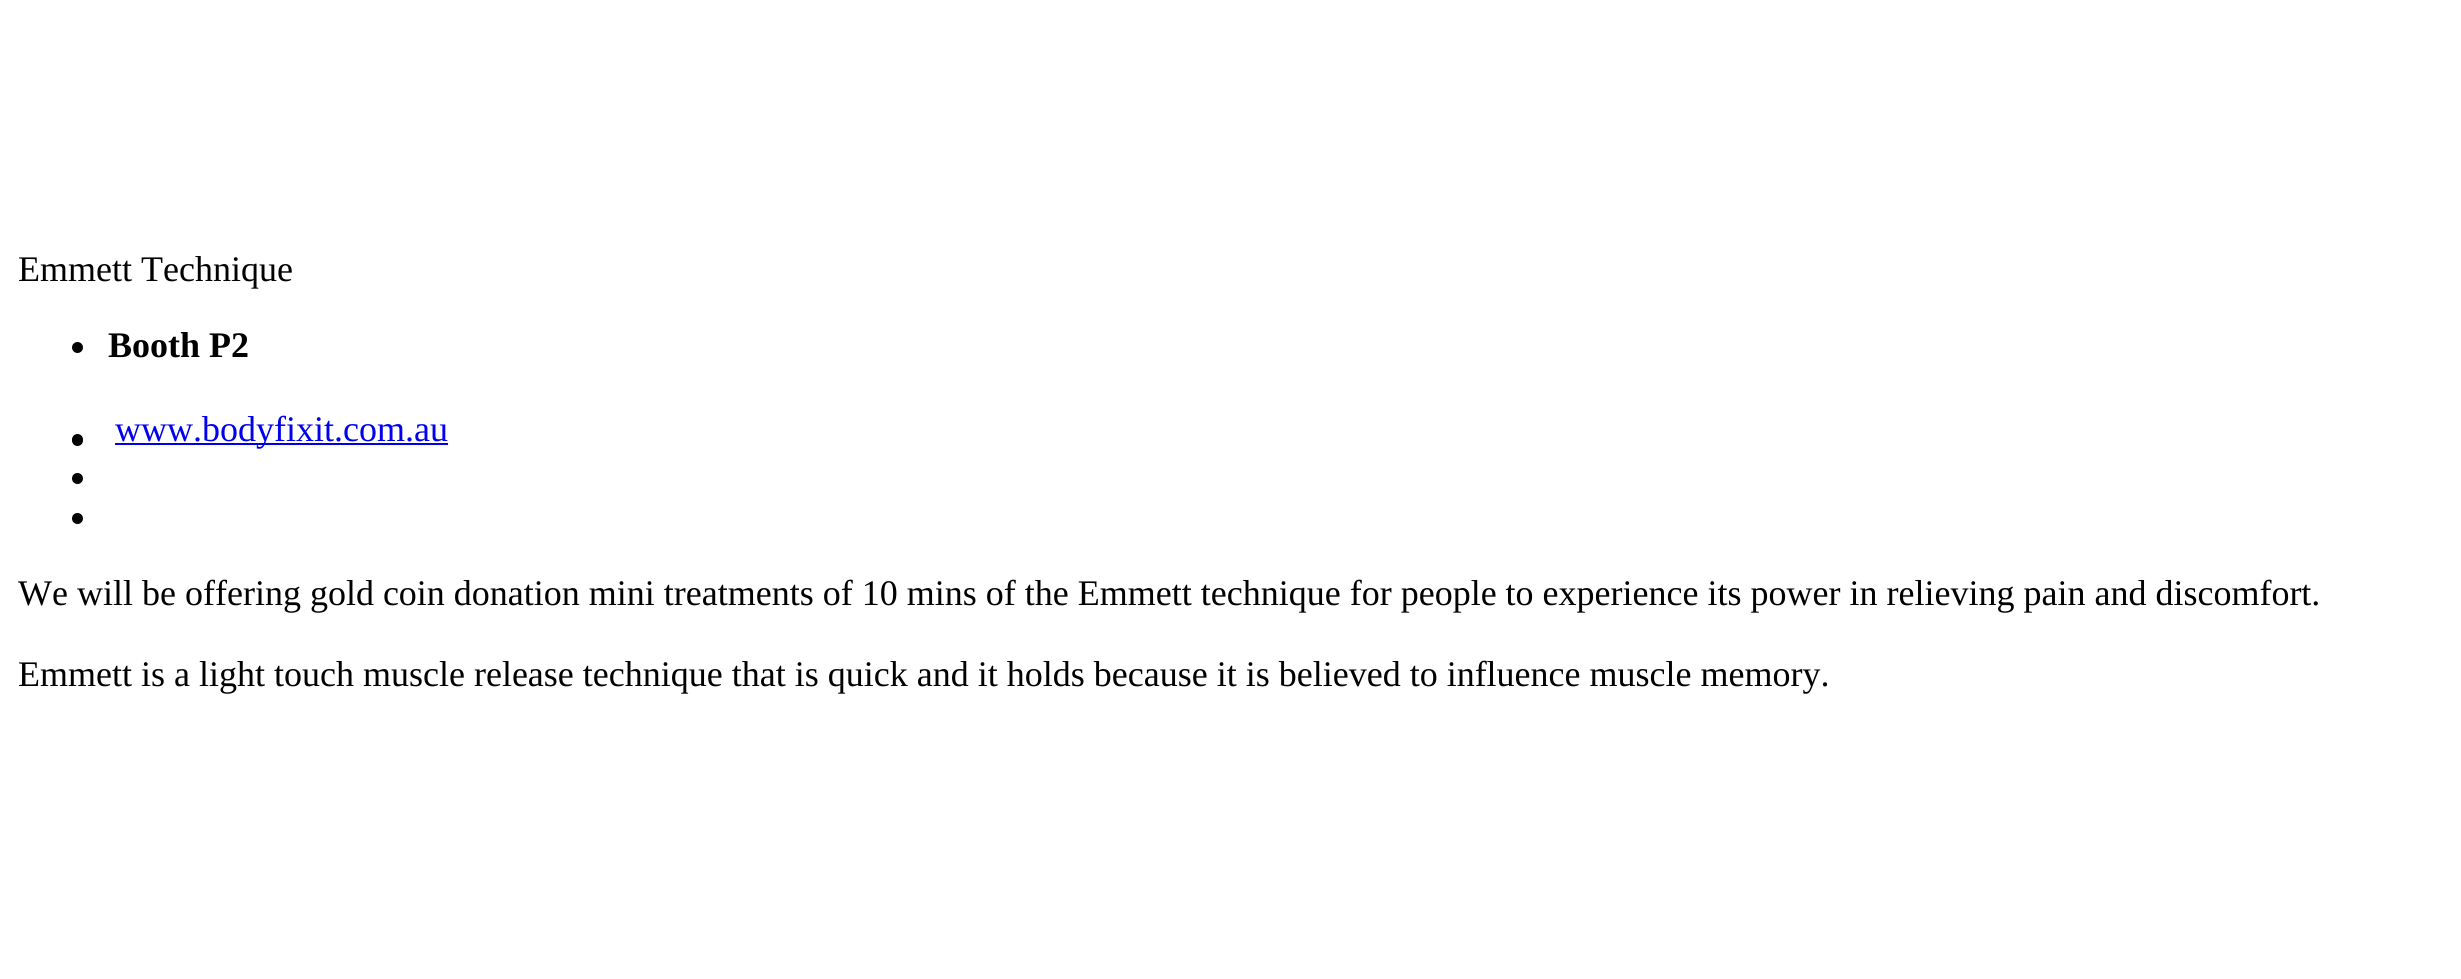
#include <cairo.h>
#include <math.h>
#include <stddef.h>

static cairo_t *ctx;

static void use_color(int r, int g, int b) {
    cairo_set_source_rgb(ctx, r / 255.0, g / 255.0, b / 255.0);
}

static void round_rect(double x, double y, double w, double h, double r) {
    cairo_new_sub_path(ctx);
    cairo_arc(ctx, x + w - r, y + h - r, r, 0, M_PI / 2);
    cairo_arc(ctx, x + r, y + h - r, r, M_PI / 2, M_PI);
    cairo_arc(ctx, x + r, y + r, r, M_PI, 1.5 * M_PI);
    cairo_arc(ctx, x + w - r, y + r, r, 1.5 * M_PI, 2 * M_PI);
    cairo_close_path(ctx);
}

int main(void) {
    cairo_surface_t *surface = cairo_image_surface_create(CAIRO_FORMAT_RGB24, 2461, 979);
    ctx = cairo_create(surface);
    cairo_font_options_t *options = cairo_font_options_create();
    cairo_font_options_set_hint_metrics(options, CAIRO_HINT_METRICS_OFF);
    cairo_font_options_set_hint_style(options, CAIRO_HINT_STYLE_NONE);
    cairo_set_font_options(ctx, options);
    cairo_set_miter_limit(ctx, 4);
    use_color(255, 255, 255);
    cairo_paint(ctx);
    cairo_select_font_face(ctx, "Liberation Serif", CAIRO_FONT_SLANT_NORMAL, CAIRO_FONT_WEIGHT_NORMAL);
    cairo_set_font_size(ctx, 36);
    use_color(0, 0, 0);
    cairo_move_to(ctx, 18, 281);
    cairo_show_text(ctx, "Emmett Technique");
    cairo_new_path(ctx);
    cairo_arc(ctx, 77.5, 347.5, 5.5, 0, 2 * M_PI);
    cairo_fill(ctx);
    cairo_select_font_face(ctx, "Liberation Serif", CAIRO_FONT_SLANT_NORMAL, CAIRO_FONT_WEIGHT_BOLD);
    cairo_move_to(ctx, 108, 357);
    cairo_show_text(ctx, "Booth P2");
    round_rect(72, 434, 11, 12, 5.5);
    cairo_fill(ctx);
    use_color(0, 0, 238);
    cairo_rectangle(ctx, 115, 443, 333, 2);
    cairo_fill(ctx);
    cairo_select_font_face(ctx, "Liberation Serif", CAIRO_FONT_SLANT_NORMAL, CAIRO_FONT_WEIGHT_NORMAL);
    cairo_move_to(ctx, 115, 441);
    cairo_show_text(ctx, "www.bodyfixit.com.au");
    use_color(0, 0, 0);
    cairo_new_path(ctx);
    cairo_arc(ctx, 77.5, 478.5, 5.5, 0, 2 * M_PI);
    cairo_fill(ctx);
    cairo_arc(ctx, 77.5, 518.5, 5.5, 0, 2 * M_PI);
    cairo_fill(ctx);
    cairo_move_to(ctx, 18, 605);
    cairo_show_text(ctx, "We will be offering gold coin donation mini treatments of 10 mins of the Emmett technique for people to experience its power in relieving pain and discomfort.");
    cairo_move_to(ctx, 18, 686);
    cairo_show_text(ctx, "Emmett is a light touch muscle release technique that is quick and it holds because it is believed to influence muscle memory.");
    cairo_surface_write_to_png(surface, "result.png");
    cairo_font_options_destroy(options);
    cairo_destroy(ctx);
    cairo_surface_destroy(surface);
    return 0;
}
